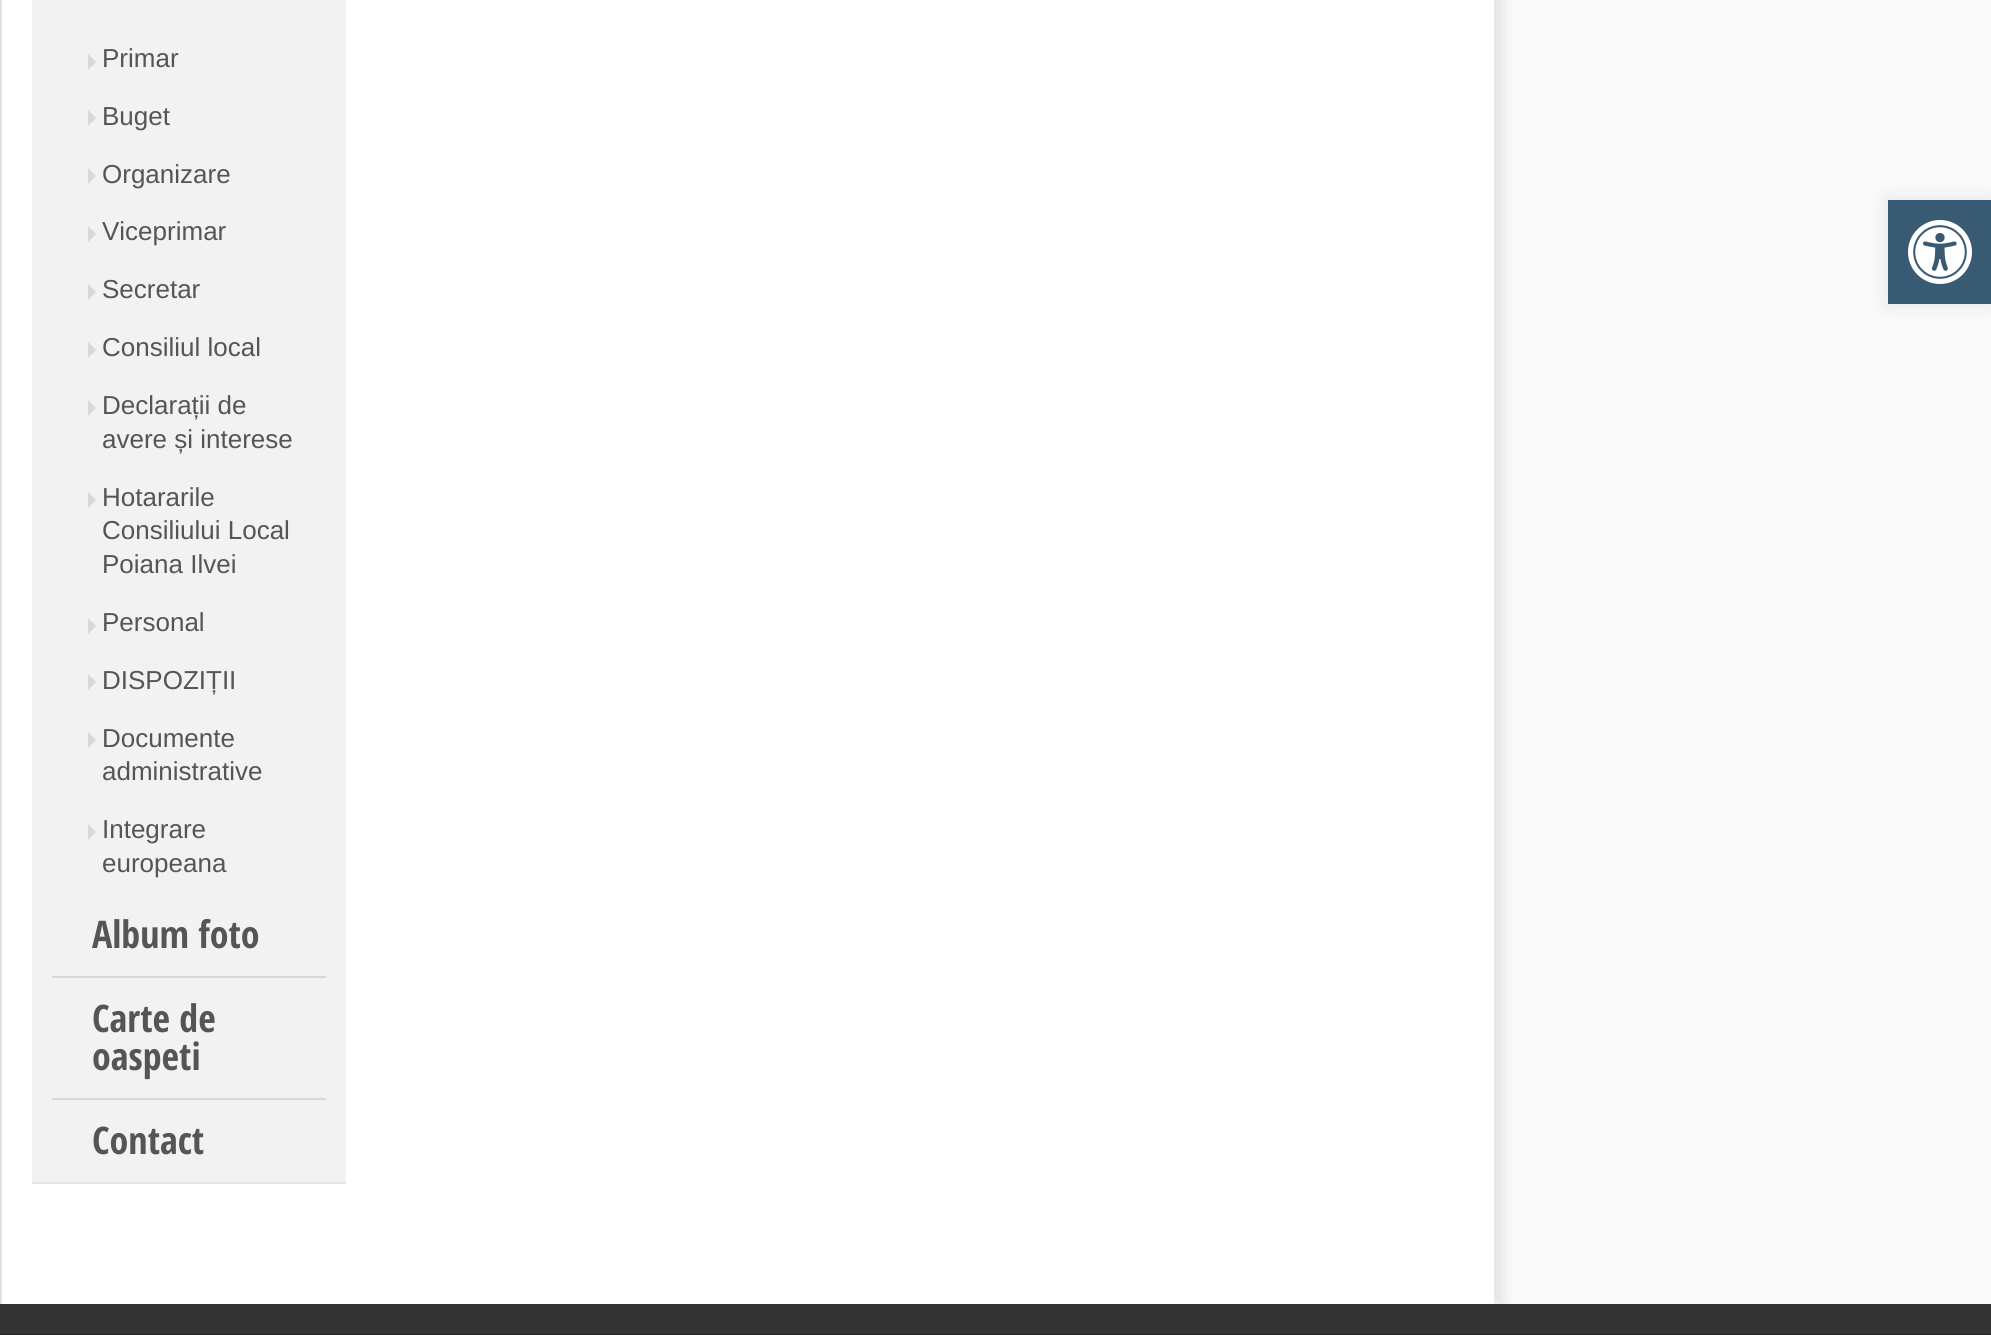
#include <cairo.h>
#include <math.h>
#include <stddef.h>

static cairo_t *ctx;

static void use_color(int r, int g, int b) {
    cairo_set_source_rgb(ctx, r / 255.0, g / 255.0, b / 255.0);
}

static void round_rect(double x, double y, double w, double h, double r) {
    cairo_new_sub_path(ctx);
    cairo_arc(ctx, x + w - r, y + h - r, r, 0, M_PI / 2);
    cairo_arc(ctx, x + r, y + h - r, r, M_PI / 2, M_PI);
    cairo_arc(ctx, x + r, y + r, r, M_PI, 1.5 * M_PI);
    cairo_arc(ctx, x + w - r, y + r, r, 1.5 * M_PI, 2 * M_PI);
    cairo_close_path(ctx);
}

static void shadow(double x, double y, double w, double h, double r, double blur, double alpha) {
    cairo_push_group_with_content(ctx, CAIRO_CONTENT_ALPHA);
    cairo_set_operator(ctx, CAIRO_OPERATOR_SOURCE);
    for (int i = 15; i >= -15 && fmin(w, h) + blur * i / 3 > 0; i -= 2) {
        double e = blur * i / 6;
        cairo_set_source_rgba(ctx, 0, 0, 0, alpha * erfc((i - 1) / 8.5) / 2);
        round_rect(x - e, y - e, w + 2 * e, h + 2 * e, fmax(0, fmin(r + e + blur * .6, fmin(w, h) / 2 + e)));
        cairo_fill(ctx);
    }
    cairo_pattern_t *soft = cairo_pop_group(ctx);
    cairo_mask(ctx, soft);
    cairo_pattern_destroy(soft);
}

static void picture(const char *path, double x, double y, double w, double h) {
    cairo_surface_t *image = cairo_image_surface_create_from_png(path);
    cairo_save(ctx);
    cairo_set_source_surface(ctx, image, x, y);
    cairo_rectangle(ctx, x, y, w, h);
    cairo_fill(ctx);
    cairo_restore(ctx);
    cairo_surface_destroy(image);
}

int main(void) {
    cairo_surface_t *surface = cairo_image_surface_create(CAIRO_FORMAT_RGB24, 1991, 1335);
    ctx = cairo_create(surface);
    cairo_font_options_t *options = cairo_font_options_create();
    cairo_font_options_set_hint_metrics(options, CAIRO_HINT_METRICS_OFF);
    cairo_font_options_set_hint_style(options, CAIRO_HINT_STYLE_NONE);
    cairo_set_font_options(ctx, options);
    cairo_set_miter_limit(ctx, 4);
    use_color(250, 250, 250);
    cairo_paint(ctx);
    use_color(229, 229, 229);
    shadow(10, -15, 1494, 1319, 0, 5, 1);
    use_color(255, 255, 255);
    cairo_rectangle(ctx, 2, 0, 1492, 1304);
    cairo_fill(ctx);
    use_color(226, 224, 224);
    cairo_rectangle(ctx, 0, 0, 2, 1304);
    cairo_fill(ctx);
    use_color(242, 242, 242);
    cairo_rectangle(ctx, 32, 0, 314, 1182);
    cairo_fill(ctx);
    use_color(230, 230, 230);
    cairo_rectangle(ctx, 32, 1182, 314, 2);
    cairo_fill(ctx);
    use_color(216, 216, 216);
    cairo_new_path(ctx);
    cairo_move_to(ctx, 88, 70);
    cairo_line_to(ctx, 88, 54);
    cairo_line_to(ctx, 96, 62);
    cairo_close_path(ctx);
    cairo_fill(ctx);
    cairo_select_font_face(ctx, "Liberation Sans", CAIRO_FONT_SLANT_NORMAL, CAIRO_FONT_WEIGHT_NORMAL);
    cairo_set_font_size(ctx, 26);
    use_color(85, 85, 85);
    cairo_move_to(ctx, 102, 67);
    cairo_show_text(ctx, "Primar");
    use_color(216, 216, 216);
    cairo_new_path(ctx);
    cairo_move_to(ctx, 88, 126);
    cairo_line_to(ctx, 88, 110);
    cairo_line_to(ctx, 96, 118);
    cairo_close_path(ctx);
    cairo_fill(ctx);
    use_color(85, 85, 85);
    cairo_move_to(ctx, 102, 125);
    cairo_show_text(ctx, "Buget");
    use_color(216, 216, 216);
    cairo_new_path(ctx);
    cairo_move_to(ctx, 88, 184);
    cairo_line_to(ctx, 88, 168);
    cairo_line_to(ctx, 96, 176);
    cairo_close_path(ctx);
    cairo_fill(ctx);
    use_color(85, 85, 85);
    cairo_move_to(ctx, 102, 183);
    cairo_show_text(ctx, "Organizare");
    use_color(216, 216, 216);
    cairo_new_path(ctx);
    cairo_move_to(ctx, 88, 242);
    cairo_line_to(ctx, 88, 226);
    cairo_line_to(ctx, 96, 234);
    cairo_close_path(ctx);
    cairo_fill(ctx);
    use_color(85, 85, 85);
    cairo_move_to(ctx, 102, 240);
    cairo_show_text(ctx, "Viceprimar");
    use_color(216, 216, 216);
    cairo_new_path(ctx);
    cairo_move_to(ctx, 88, 300);
    cairo_line_to(ctx, 88, 284);
    cairo_line_to(ctx, 96, 292);
    cairo_close_path(ctx);
    cairo_fill(ctx);
    use_color(85, 85, 85);
    cairo_move_to(ctx, 102, 298);
    cairo_show_text(ctx, "Secretar");
    use_color(216, 216, 216);
    cairo_new_path(ctx);
    cairo_move_to(ctx, 88, 358);
    cairo_line_to(ctx, 88, 342);
    cairo_line_to(ctx, 96, 350);
    cairo_close_path(ctx);
    cairo_fill(ctx);
    use_color(85, 85, 85);
    cairo_move_to(ctx, 102, 356);
    cairo_show_text(ctx, "Consiliul local");
    use_color(216, 216, 216);
    cairo_new_path(ctx);
    cairo_move_to(ctx, 88, 416);
    cairo_line_to(ctx, 88, 400);
    cairo_line_to(ctx, 96, 408);
    cairo_close_path(ctx);
    cairo_fill(ctx);
    use_color(85, 85, 85);
    cairo_move_to(ctx, 102, 414);
    cairo_show_text(ctx, "Declarații de");
    cairo_move_to(ctx, 102, 448);
    cairo_show_text(ctx, "avere și interese");
    use_color(216, 216, 216);
    cairo_new_path(ctx);
    cairo_move_to(ctx, 88, 508);
    cairo_line_to(ctx, 88, 492);
    cairo_line_to(ctx, 96, 500);
    cairo_close_path(ctx);
    cairo_fill(ctx);
    use_color(85, 85, 85);
    cairo_move_to(ctx, 102, 506);
    cairo_show_text(ctx, "Hotararile");
    cairo_move_to(ctx, 102, 539);
    cairo_show_text(ctx, "Consiliului Local");
    cairo_move_to(ctx, 102, 573);
    cairo_show_text(ctx, "Poiana Ilvei");
    use_color(216, 216, 216);
    cairo_new_path(ctx);
    cairo_move_to(ctx, 88, 634);
    cairo_line_to(ctx, 88, 618);
    cairo_line_to(ctx, 96, 626);
    cairo_close_path(ctx);
    cairo_fill(ctx);
    use_color(85, 85, 85);
    cairo_move_to(ctx, 102, 631);
    cairo_show_text(ctx, "Personal");
    use_color(216, 216, 216);
    cairo_new_path(ctx);
    cairo_move_to(ctx, 88, 690);
    cairo_line_to(ctx, 88, 674);
    cairo_line_to(ctx, 96, 682);
    cairo_close_path(ctx);
    cairo_fill(ctx);
    use_color(85, 85, 85);
    cairo_move_to(ctx, 102, 689);
    cairo_show_text(ctx, "DISPOZIȚII");
    use_color(216, 216, 216);
    cairo_new_path(ctx);
    cairo_move_to(ctx, 88, 748);
    cairo_line_to(ctx, 88, 732);
    cairo_line_to(ctx, 96, 740);
    cairo_close_path(ctx);
    cairo_fill(ctx);
    use_color(85, 85, 85);
    cairo_move_to(ctx, 102, 747);
    cairo_show_text(ctx, "Documente");
    cairo_move_to(ctx, 102, 780);
    cairo_show_text(ctx, "administrative");
    use_color(216, 216, 216);
    cairo_new_path(ctx);
    cairo_move_to(ctx, 88, 840);
    cairo_line_to(ctx, 88, 824);
    cairo_line_to(ctx, 96, 832);
    cairo_close_path(ctx);
    cairo_fill(ctx);
    use_color(85, 85, 85);
    cairo_move_to(ctx, 102, 838);
    cairo_show_text(ctx, "Integrare");
    cairo_move_to(ctx, 102, 872);
    cairo_show_text(ctx, "europeana");
    use_color(216, 216, 216);
    cairo_rectangle(ctx, 52, 976, 274, 2);
    cairo_fill(ctx);
    cairo_select_font_face(ctx, "Open Sans Condensed", CAIRO_FONT_SLANT_NORMAL, CAIRO_FONT_WEIGHT_BOLD);
    cairo_set_font_size(ctx, 38);
    use_color(85, 85, 85);
    cairo_move_to(ctx, 92, 948);
    cairo_show_text(ctx, "Album foto");
    use_color(216, 216, 216);
    cairo_rectangle(ctx, 52, 1098, 274, 2);
    cairo_fill(ctx);
    use_color(85, 85, 85);
    cairo_move_to(ctx, 92, 1032);
    cairo_show_text(ctx, "Carte de");
    cairo_move_to(ctx, 92, 1070);
    cairo_show_text(ctx, "oaspeti");
    cairo_move_to(ctx, 92, 1154);
    cairo_show_text(ctx, "Contact");
    use_color(0, 0, 0);
    shadow(1888, 200, 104, 104, 0, 10, 0.1);
    use_color(56, 90, 114);
    cairo_rectangle(ctx, 1888, 200, 103, 104);
    cairo_fill(ctx);
    picture("img1.png", 1908, 220, 64, 64);
    use_color(51, 51, 51);
    cairo_rectangle(ctx, 0, 1304, 1991, 30);
    cairo_fill(ctx);
    use_color(33, 33, 33);
    cairo_rectangle(ctx, 0, 1334, 1991, 1);
    cairo_fill(ctx);
    cairo_surface_write_to_png(surface, "result.png");
    cairo_font_options_destroy(options);
    cairo_destroy(ctx);
    cairo_surface_destroy(surface);
    return 0;
}
